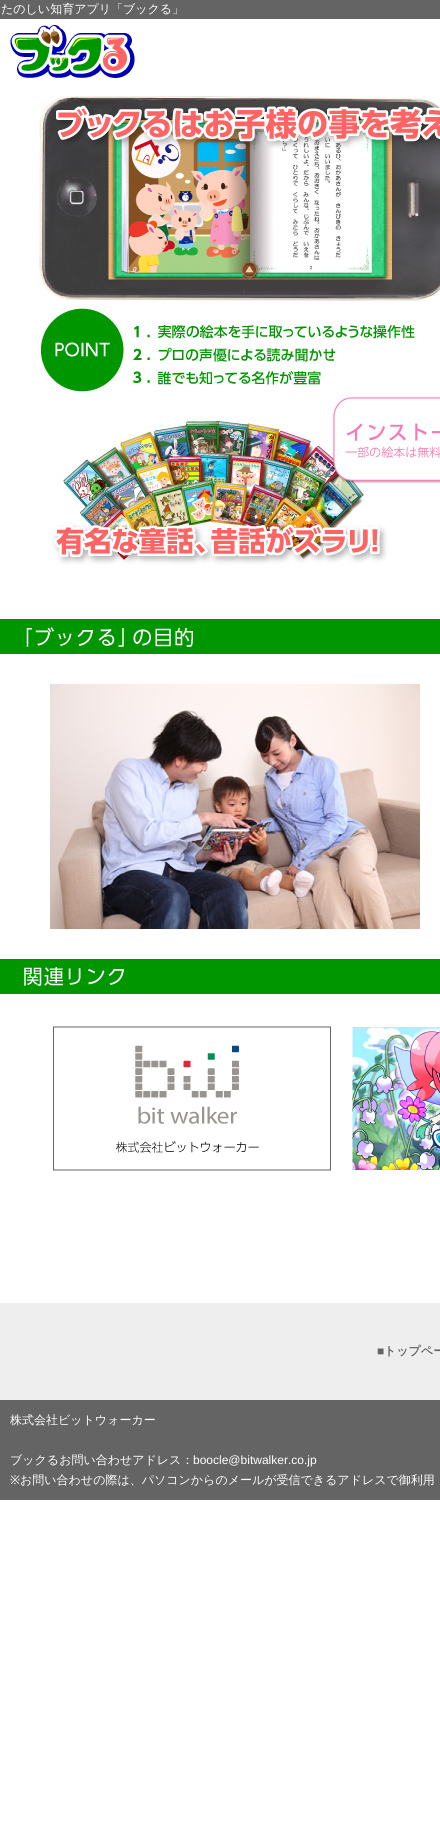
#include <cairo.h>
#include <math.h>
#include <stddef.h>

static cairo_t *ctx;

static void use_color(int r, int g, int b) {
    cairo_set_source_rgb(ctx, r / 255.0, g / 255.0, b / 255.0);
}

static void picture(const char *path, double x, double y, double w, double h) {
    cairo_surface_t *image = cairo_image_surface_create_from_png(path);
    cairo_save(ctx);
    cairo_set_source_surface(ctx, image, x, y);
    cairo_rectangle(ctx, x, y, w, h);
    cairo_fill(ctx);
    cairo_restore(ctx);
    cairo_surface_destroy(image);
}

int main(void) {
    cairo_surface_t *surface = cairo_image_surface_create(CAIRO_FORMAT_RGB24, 440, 1821);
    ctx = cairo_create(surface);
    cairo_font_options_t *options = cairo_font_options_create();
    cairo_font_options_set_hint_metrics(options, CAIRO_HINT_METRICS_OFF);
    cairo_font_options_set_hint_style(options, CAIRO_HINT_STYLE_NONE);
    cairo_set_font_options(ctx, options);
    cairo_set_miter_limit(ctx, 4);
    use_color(255, 255, 255);
    cairo_paint(ctx);
    use_color(101, 100, 100);
    cairo_rectangle(ctx, 0, 0, 440, 19);
    cairo_fill(ctx);
    cairo_select_font_face(ctx, "WenQuanYi Zen Hei Medium", CAIRO_FONT_SLANT_NORMAL, CAIRO_FONT_WEIGHT_NORMAL);
    cairo_set_font_size(ctx, 12);
    use_color(255, 255, 255);
    cairo_move_to(ctx, 1, 13);
    cairo_show_text(ctx, "たのしい知育アプリ「ブックる」");
    picture("img1.png", 10, 25, 125, 53);
    picture("img2.png", 38, 95, 402, 470);
    picture("img3.png", 0, 619, 440, 35);
    picture("img4.png", 50, 684, 370, 245);
    picture("img5.png", 0, 959, 440, 35);
    picture("img6.png", 53, 1026, 278, 145);
    picture("img7.png", 352, 1027, 88, 143);
    use_color(238, 238, 238);
    cairo_rectangle(ctx, 0, 1303, 440, 97);
    cairo_fill(ctx);
    cairo_select_font_face(ctx, "Liberation Sans", CAIRO_FONT_SLANT_NORMAL, CAIRO_FONT_WEIGHT_BOLD);
    use_color(101, 100, 100);
    cairo_move_to(ctx, 377, 1355);
    cairo_show_text(ctx, "■");
    cairo_select_font_face(ctx, "WenQuanYi Zen Hei", CAIRO_FONT_SLANT_NORMAL, CAIRO_FONT_WEIGHT_BOLD);
    cairo_move_to(ctx, 384, 1355);
    cairo_show_text(ctx, "トップペー");
    cairo_rectangle(ctx, 0, 1400, 440, 100);
    cairo_fill(ctx);
    cairo_select_font_face(ctx, "WenQuanYi Zen Hei Medium", CAIRO_FONT_SLANT_NORMAL, CAIRO_FONT_WEIGHT_NORMAL);
    use_color(255, 255, 255);
    cairo_move_to(ctx, 10, 1424);
    cairo_show_text(ctx, "株式会社ビットウォーカー");
    cairo_move_to(ctx, 10, 1464);
    cairo_show_text(ctx, "ブックるお問い合わせアドレス：");
    cairo_select_font_face(ctx, "Liberation Sans", CAIRO_FONT_SLANT_NORMAL, CAIRO_FONT_WEIGHT_NORMAL);
    cairo_move_to(ctx, 193, 1464);
    cairo_show_text(ctx, "boocle@bitwalker.co.jp");
    cairo_select_font_face(ctx, "Noto Sans", CAIRO_FONT_SLANT_NORMAL, CAIRO_FONT_WEIGHT_NORMAL);
    cairo_move_to(ctx, 10, 1484);
    cairo_show_text(ctx, "※");
    cairo_select_font_face(ctx, "WenQuanYi Zen Hei Medium", CAIRO_FONT_SLANT_NORMAL, CAIRO_FONT_WEIGHT_NORMAL);
    cairo_move_to(ctx, 20, 1484);
    cairo_show_text(ctx, "お問い合わせの際は、パソコンからのメールが受信できるアドレスで御利用");
    cairo_surface_write_to_png(surface, "result.png");
    cairo_font_options_destroy(options);
    cairo_destroy(ctx);
    cairo_surface_destroy(surface);
    return 0;
}
